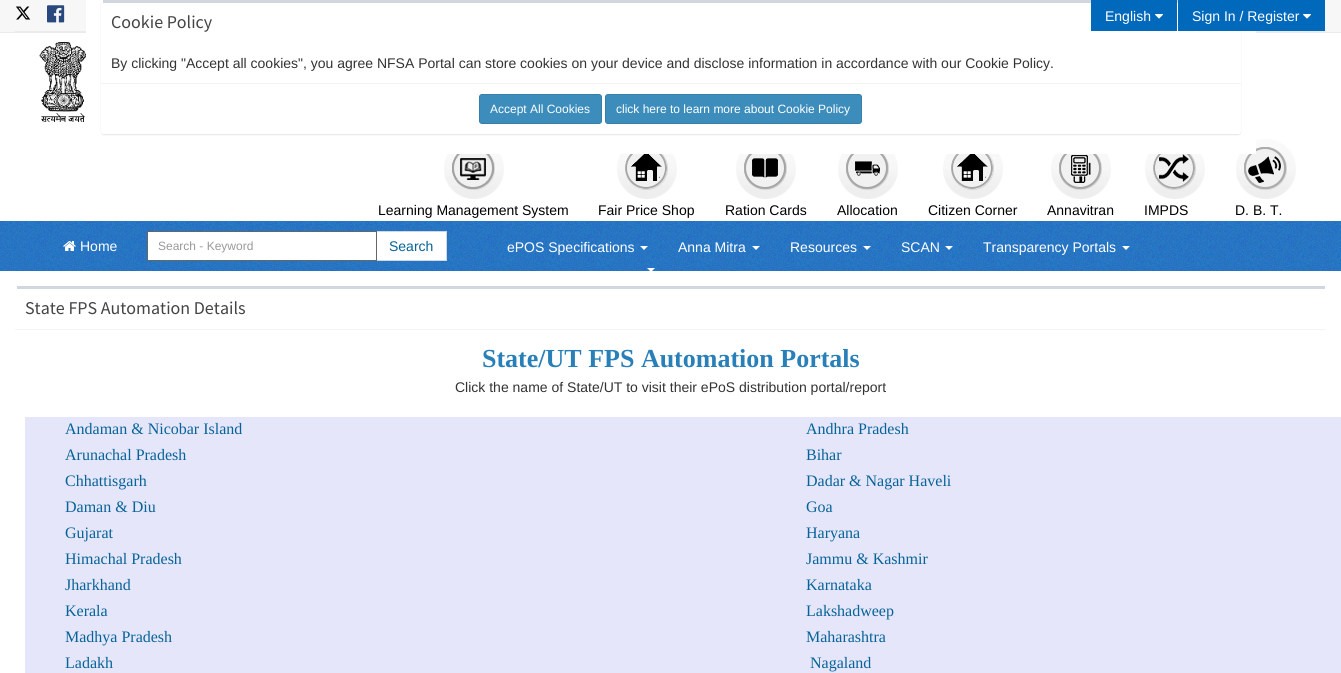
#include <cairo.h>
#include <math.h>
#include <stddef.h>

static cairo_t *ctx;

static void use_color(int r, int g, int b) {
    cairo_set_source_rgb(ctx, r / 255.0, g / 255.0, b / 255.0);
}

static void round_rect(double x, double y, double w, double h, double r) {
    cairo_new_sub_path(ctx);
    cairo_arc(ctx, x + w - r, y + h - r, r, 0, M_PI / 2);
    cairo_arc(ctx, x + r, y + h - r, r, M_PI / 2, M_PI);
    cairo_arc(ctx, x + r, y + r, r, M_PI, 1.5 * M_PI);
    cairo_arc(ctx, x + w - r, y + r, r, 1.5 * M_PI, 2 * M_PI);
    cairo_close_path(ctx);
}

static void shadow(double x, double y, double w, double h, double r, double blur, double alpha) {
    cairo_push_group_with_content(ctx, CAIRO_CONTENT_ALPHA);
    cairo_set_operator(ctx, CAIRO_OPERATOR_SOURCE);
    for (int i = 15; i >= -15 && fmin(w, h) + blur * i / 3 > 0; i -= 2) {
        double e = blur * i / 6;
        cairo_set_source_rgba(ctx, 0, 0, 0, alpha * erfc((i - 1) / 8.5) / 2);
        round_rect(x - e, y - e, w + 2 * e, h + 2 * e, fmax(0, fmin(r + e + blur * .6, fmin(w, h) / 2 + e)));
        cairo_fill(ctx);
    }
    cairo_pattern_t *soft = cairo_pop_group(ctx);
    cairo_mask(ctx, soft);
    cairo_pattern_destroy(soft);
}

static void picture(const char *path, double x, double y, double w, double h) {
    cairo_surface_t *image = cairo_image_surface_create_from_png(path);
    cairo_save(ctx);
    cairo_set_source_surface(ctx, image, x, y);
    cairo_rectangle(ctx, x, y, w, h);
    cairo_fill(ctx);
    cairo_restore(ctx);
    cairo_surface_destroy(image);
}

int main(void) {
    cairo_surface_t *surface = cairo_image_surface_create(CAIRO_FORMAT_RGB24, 1341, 673);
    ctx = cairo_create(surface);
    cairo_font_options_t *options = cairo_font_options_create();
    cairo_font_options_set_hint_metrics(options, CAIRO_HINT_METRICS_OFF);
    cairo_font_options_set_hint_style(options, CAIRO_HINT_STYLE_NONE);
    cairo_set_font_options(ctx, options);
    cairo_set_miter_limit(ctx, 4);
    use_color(255, 255, 255);
    cairo_paint(ctx);
    use_color(247, 247, 247);
    cairo_rectangle(ctx, 0, 0, 1341, 32);
    cairo_fill(ctx);
    use_color(235, 235, 235);
    cairo_rectangle(ctx, 0, 32, 1341, 1);
    cairo_fill(ctx);
    cairo_rectangle(ctx, 15, 31, 1311, 1);
    cairo_fill(ctx);
    picture("img1.png", 16, 6, 15, 14);
    picture("img2.png", 47, 5, 18, 18);
    picture("img17.png", 1236, 139, 60, 60);
    picture("img18.png", 1244, 147, 42, 42);
    use_color(255, 255, 255);
    cairo_rectangle(ctx, 86, 0, 1170, 154);
    cairo_fill(ctx);
    use_color(0, 0, 0);
    shadow(101, 1, 1140, 134, 3, 0.5, 0.1);
    use_color(255, 255, 255);
    round_rect(101, 0, 1140, 134, 3);
    cairo_fill(ctx);
    use_color(210, 214, 222);
    cairo_rectangle(ctx, 103, 0, 1075, 3);
    cairo_fill(ctx);
    use_color(0, 105, 188);
    cairo_rectangle(ctx, 1091, 0, 86, 31);
    cairo_fill(ctx);
    cairo_select_font_face(ctx, "Liberation Sans", CAIRO_FONT_SLANT_NORMAL, CAIRO_FONT_WEIGHT_NORMAL);
    cairo_set_font_size(ctx, 14);
    use_color(255, 255, 255);
    cairo_move_to(ctx, 1105, 21);
    cairo_show_text(ctx, "English");
    picture("img3.png", 1155, 14, 8, 5);
    use_color(0, 105, 188);
    cairo_rectangle(ctx, 1178, 0, 147, 31);
    cairo_fill(ctx);
    use_color(255, 255, 255);
    cairo_move_to(ctx, 1192, 21);
    cairo_show_text(ctx, "Sign In / Register");
    picture("img3.png", 1303, 14, 8, 5);
    picture("img4.png", 39, 42, 47, 80);
    picture("img5.png", 444, 154, 60, 45);
    picture("img6.png", 452, 154, 42, 35);
    use_color(0, 0, 0);
    cairo_move_to(ctx, 378, 215);
    cairo_show_text(ctx, "Learning Management System");
    picture("img7.png", 617, 154, 60, 45);
    picture("img8.png", 635, 154, 32, 35);
    cairo_move_to(ctx, 598, 215);
    cairo_show_text(ctx, "Fair Price Shop");
    picture("img9.png", 736, 154, 60, 45);
    picture("img10.png", 744, 154, 42, 35);
    cairo_move_to(ctx, 725, 215);
    cairo_show_text(ctx, "Ration Cards");
    picture("img11.png", 838, 154, 60, 45);
    picture("img12.png", 846, 154, 42, 35);
    cairo_move_to(ctx, 837, 215);
    cairo_show_text(ctx, "Allocation");
    picture("img7.png", 943, 154, 60, 45);
    picture("img8.png", 961, 154, 32, 35);
    cairo_move_to(ctx, 928, 215);
    cairo_show_text(ctx, "Citizen Corner");
    picture("img13.png", 1051, 154, 60, 45);
    picture("img14.png", 1059, 154, 42, 35);
    cairo_move_to(ctx, 1047, 215);
    cairo_show_text(ctx, "Annavitran");
    picture("img15.png", 1145, 154, 60, 45);
    picture("img16.png", 1153, 154, 42, 35);
    cairo_move_to(ctx, 1144, 215);
    cairo_show_text(ctx, "IMPDS");
    cairo_move_to(ctx, 1235, 215);
    cairo_show_text(ctx, "D. B. T.");
    picture("img19.png", 0, 221, 1341, 50);
    picture("img20.png", 15, 221, 1311, 50);
    picture("img21.png", 63, 241, 13, 10);
    use_color(255, 255, 255);
    cairo_move_to(ctx, 80, 251);
    cairo_show_text(ctx, "Home");
    cairo_rectangle(ctx, 147.5, 231.5, 229, 29);
    cairo_fill_preserve(ctx);
    use_color(102, 102, 102);
    cairo_set_line_width(ctx, 1);
    cairo_stroke(ctx);
    cairo_set_font_size(ctx, 12);
    use_color(153, 153, 153);
    cairo_move_to(ctx, 158, 250);
    cairo_show_text(ctx, "Search - Keyword");
    use_color(255, 255, 255);
    cairo_rectangle(ctx, 377, 232, 69, 28);
    cairo_fill(ctx);
    use_color(210, 214, 222);
    cairo_rectangle(ctx, 377, 231, 70, 1);
    cairo_fill(ctx);
    cairo_rectangle(ctx, 446, 231, 1, 30);
    cairo_fill(ctx);
    cairo_rectangle(ctx, 377, 260, 70, 1);
    cairo_fill(ctx);
    cairo_set_font_size(ctx, 14);
    use_color(6, 99, 152);
    cairo_move_to(ctx, 389, 251);
    cairo_show_text(ctx, "Search");
    use_color(255, 255, 255);
    cairo_move_to(ctx, 507, 252);
    cairo_show_text(ctx, "ePOS Specifications");
    cairo_new_path(ctx);
    cairo_move_to(ctx, 640, 246);
    cairo_line_to(ctx, 648, 246);
    cairo_line_to(ctx, 644, 250);
    cairo_close_path(ctx);
    cairo_fill(ctx);
    cairo_move_to(ctx, 678, 252);
    cairo_show_text(ctx, "Anna Mitra");
    cairo_new_path(ctx);
    cairo_move_to(ctx, 752, 246);
    cairo_line_to(ctx, 760, 246);
    cairo_line_to(ctx, 756, 250);
    cairo_close_path(ctx);
    cairo_fill(ctx);
    cairo_move_to(ctx, 790, 252);
    cairo_show_text(ctx, "Resources");
    cairo_new_path(ctx);
    cairo_move_to(ctx, 863, 246);
    cairo_line_to(ctx, 871, 246);
    cairo_line_to(ctx, 867, 250);
    cairo_close_path(ctx);
    cairo_fill(ctx);
    cairo_move_to(ctx, 901, 252);
    cairo_show_text(ctx, "SCAN");
    cairo_new_path(ctx);
    cairo_move_to(ctx, 945, 246);
    cairo_line_to(ctx, 953, 246);
    cairo_line_to(ctx, 949, 250);
    cairo_close_path(ctx);
    cairo_fill(ctx);
    cairo_move_to(ctx, 983, 252);
    cairo_show_text(ctx, "Transparency Portals");
    cairo_new_path(ctx);
    cairo_move_to(ctx, 1122, 246);
    cairo_line_to(ctx, 1130, 246);
    cairo_line_to(ctx, 1126, 250);
    cairo_close_path(ctx);
    cairo_fill(ctx);
    cairo_new_path(ctx);
    cairo_move_to(ctx, 647, 268);
    cairo_line_to(ctx, 655, 268);
    cairo_line_to(ctx, 651, 272);
    cairo_close_path(ctx);
    cairo_fill(ctx);
    use_color(210, 214, 222);
    cairo_rectangle(ctx, 17, 286, 1308, 3);
    cairo_fill(ctx);
    use_color(244, 244, 244);
    cairo_rectangle(ctx, 15, 329, 1311, 1);
    cairo_fill(ctx);
    cairo_select_font_face(ctx, "Source Sans Pro", CAIRO_FONT_SLANT_NORMAL, CAIRO_FONT_WEIGHT_NORMAL);
    cairo_set_font_size(ctx, 18);
    use_color(68, 68, 68);
    cairo_move_to(ctx, 25, 314);
    cairo_show_text(ctx, "State FPS Automation Details");
    cairo_select_font_face(ctx, "Liberation Serif", CAIRO_FONT_SLANT_NORMAL, CAIRO_FONT_WEIGHT_BOLD);
    cairo_set_font_size(ctx, 26);
    use_color(41, 128, 185);
    cairo_move_to(ctx, 482, 367);
    cairo_show_text(ctx, "State/UT FPS Automation Portals");
    cairo_select_font_face(ctx, "Liberation Sans", CAIRO_FONT_SLANT_NORMAL, CAIRO_FONT_WEIGHT_NORMAL);
    cairo_set_font_size(ctx, 14);
    use_color(51, 51, 51);
    cairo_move_to(ctx, 455, 392);
    cairo_show_text(ctx, "Click the name of State/UT to visit their ePoS distribution portal/report");
    use_color(230, 230, 250);
    cairo_rectangle(ctx, 25, 417, 1316, 256);
    cairo_fill(ctx);
    cairo_select_font_face(ctx, "Liberation Serif", CAIRO_FONT_SLANT_NORMAL, CAIRO_FONT_WEIGHT_NORMAL);
    cairo_set_font_size(ctx, 16);
    use_color(6, 99, 152);
    cairo_move_to(ctx, 65, 434);
    cairo_show_text(ctx, "Andaman & Nicobar Island");
    cairo_move_to(ctx, 806, 434);
    cairo_show_text(ctx, "Andhra Pradesh");
    cairo_move_to(ctx, 65, 460);
    cairo_show_text(ctx, "Arunachal Pradesh");
    cairo_move_to(ctx, 806, 460);
    cairo_show_text(ctx, "Bihar");
    cairo_move_to(ctx, 65, 486);
    cairo_show_text(ctx, "Chhattisgarh");
    cairo_move_to(ctx, 806, 486);
    cairo_show_text(ctx, "Dadar & Nagar Haveli");
    cairo_move_to(ctx, 65, 512);
    cairo_show_text(ctx, "Daman & Diu");
    cairo_move_to(ctx, 806, 512);
    cairo_show_text(ctx, "Goa");
    cairo_move_to(ctx, 65, 538);
    cairo_show_text(ctx, "Gujarat");
    cairo_move_to(ctx, 806, 538);
    cairo_show_text(ctx, "Haryana");
    cairo_move_to(ctx, 65, 564);
    cairo_show_text(ctx, "Himachal Pradesh");
    cairo_move_to(ctx, 806, 564);
    cairo_show_text(ctx, "Jammu & Kashmir");
    cairo_move_to(ctx, 65, 590);
    cairo_show_text(ctx, "Jharkhand");
    cairo_move_to(ctx, 806, 590);
    cairo_show_text(ctx, "Karnataka");
    cairo_move_to(ctx, 65, 616);
    cairo_show_text(ctx, "Kerala");
    cairo_move_to(ctx, 806, 616);
    cairo_show_text(ctx, "Lakshadweep");
    cairo_move_to(ctx, 65, 642);
    cairo_show_text(ctx, "Madhya Pradesh");
    cairo_move_to(ctx, 806, 642);
    cairo_show_text(ctx, "Maharashtra");
    cairo_move_to(ctx, 65, 668);
    cairo_show_text(ctx, "Ladakh");
    cairo_move_to(ctx, 810, 668);
    cairo_show_text(ctx, "Nagaland");
    cairo_select_font_face(ctx, "Source Sans Pro", CAIRO_FONT_SLANT_NORMAL, CAIRO_FONT_WEIGHT_NORMAL);
    cairo_set_font_size(ctx, 18);
    use_color(68, 68, 68);
    cairo_move_to(ctx, 111, 28);
    cairo_show_text(ctx, "Cookie Policy");
    cairo_select_font_face(ctx, "Liberation Sans", CAIRO_FONT_SLANT_NORMAL, CAIRO_FONT_WEIGHT_NORMAL);
    cairo_set_font_size(ctx, 14);
    use_color(51, 51, 51);
    cairo_move_to(ctx, 111, 68);
    cairo_show_text(ctx, "By clicking \"Accept all cookies\", you agree NFSA Portal can store cookies on your device and disclose information in accordance with our Cookie Policy.");
    use_color(255, 255, 255);
    cairo_new_path(ctx);
    cairo_move_to(ctx, 101, 83);
    cairo_line_to(ctx, 1241, 83);
    cairo_line_to(ctx, 1241, 131);
    cairo_curve_to(ctx, 1241, 132.5, 1239.5, 134, 1238, 134);
    cairo_line_to(ctx, 104, 134);
    cairo_curve_to(ctx, 102.5, 134, 101, 132.5, 101, 131);
    cairo_close_path(ctx);
    cairo_fill(ctx);
    use_color(244, 244, 244);
    cairo_rectangle(ctx, 101, 83, 1140, 1);
    cairo_fill(ctx);
    use_color(60, 141, 188);
    round_rect(479.5, 94.5, 122, 29, 2.5);
    cairo_fill_preserve(ctx);
    use_color(54, 127, 169);
    cairo_stroke(ctx);
    cairo_set_font_size(ctx, 12);
    use_color(255, 255, 255);
    cairo_move_to(ctx, 490, 113);
    cairo_show_text(ctx, "Accept All Cookies");
    use_color(60, 141, 188);
    round_rect(605.5, 94.5, 256, 29, 2.5);
    cairo_fill_preserve(ctx);
    use_color(54, 127, 169);
    cairo_stroke(ctx);
    use_color(255, 255, 255);
    cairo_move_to(ctx, 616, 113);
    cairo_show_text(ctx, "click here to learn more about Cookie Policy");
    cairo_surface_write_to_png(surface, "result.png");
    cairo_font_options_destroy(options);
    cairo_destroy(ctx);
    cairo_surface_destroy(surface);
    return 0;
}
